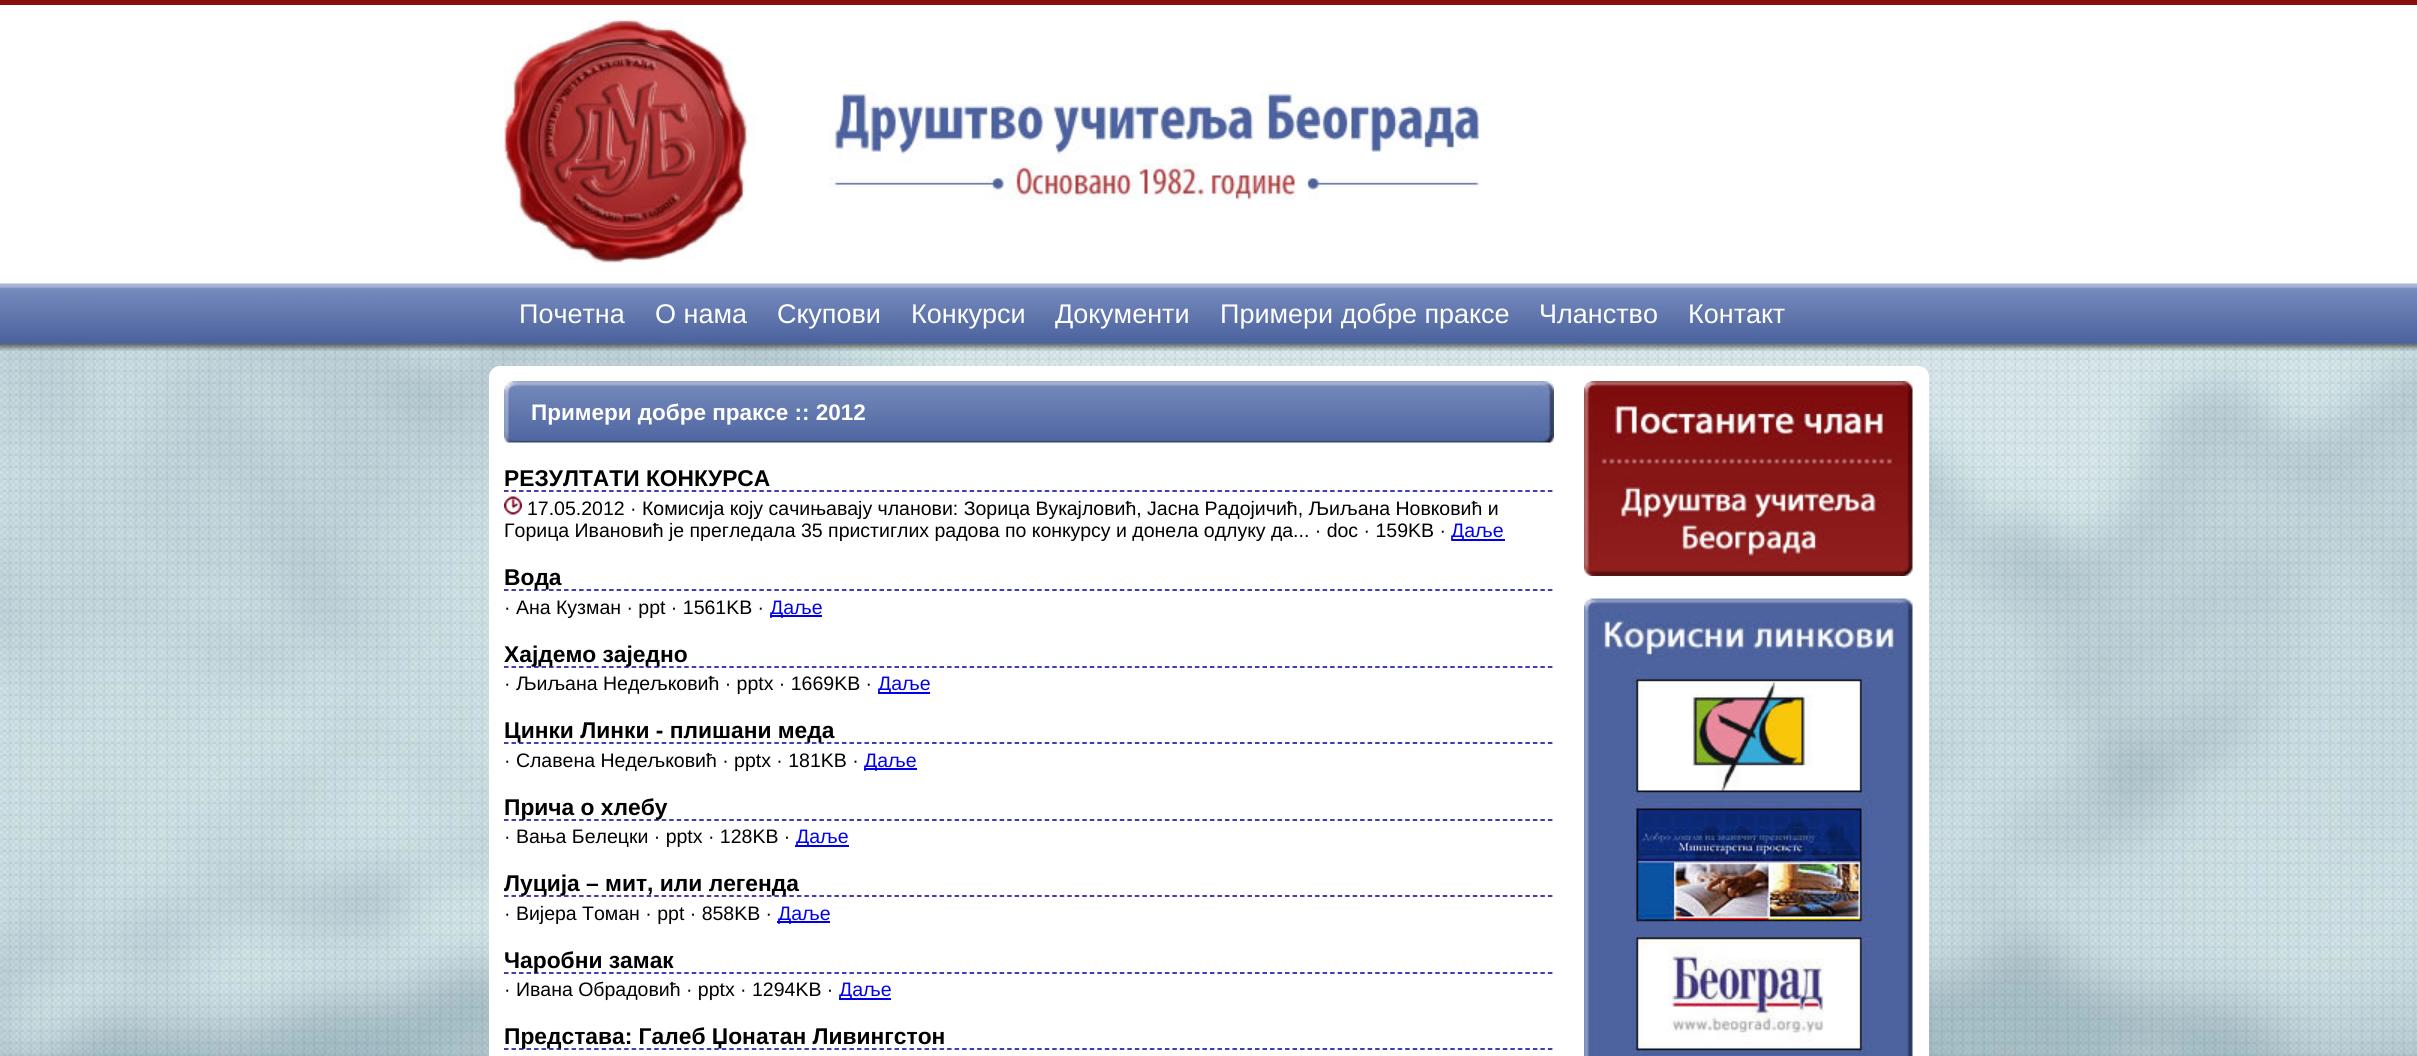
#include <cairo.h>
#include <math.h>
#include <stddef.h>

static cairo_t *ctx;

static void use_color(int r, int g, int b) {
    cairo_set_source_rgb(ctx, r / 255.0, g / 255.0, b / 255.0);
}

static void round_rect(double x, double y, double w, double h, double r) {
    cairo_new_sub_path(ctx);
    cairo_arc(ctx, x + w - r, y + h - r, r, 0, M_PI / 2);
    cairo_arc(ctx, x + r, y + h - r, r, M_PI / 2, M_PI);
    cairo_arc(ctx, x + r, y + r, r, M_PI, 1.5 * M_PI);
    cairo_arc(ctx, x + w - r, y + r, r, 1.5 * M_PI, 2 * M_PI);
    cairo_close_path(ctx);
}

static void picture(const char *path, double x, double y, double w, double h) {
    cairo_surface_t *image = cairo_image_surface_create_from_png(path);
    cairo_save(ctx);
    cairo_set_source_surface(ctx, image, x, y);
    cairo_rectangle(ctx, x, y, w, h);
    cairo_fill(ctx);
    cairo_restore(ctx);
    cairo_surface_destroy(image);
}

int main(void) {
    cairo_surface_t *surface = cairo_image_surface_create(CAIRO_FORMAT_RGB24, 2417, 1056);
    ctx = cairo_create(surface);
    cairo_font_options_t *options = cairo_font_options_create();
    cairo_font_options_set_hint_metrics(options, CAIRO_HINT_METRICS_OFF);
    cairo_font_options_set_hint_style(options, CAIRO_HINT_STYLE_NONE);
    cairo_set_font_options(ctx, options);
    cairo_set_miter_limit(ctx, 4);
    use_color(255, 255, 255);
    cairo_paint(ctx);
    picture("img1.png", 0, 343, 2417, 713);
    use_color(139, 14, 14);
    cairo_rectangle(ctx, 0, 0, 2417, 5);
    cairo_fill(ctx);
    picture("img2.png", 504, 19, 975, 244);
    picture("img3.png", 0, 278, 2417, 73);
    cairo_select_font_face(ctx, "Liberation Sans", CAIRO_FONT_SLANT_NORMAL, CAIRO_FONT_WEIGHT_NORMAL);
    cairo_set_font_size(ctx, 27);
    use_color(255, 255, 255);
    cairo_move_to(ctx, 519, 323);
    cairo_show_text(ctx, "Почетна");
    cairo_move_to(ctx, 655, 323);
    cairo_show_text(ctx, "О нама");
    cairo_move_to(ctx, 777, 323);
    cairo_show_text(ctx, "Скупови");
    cairo_move_to(ctx, 911, 323);
    cairo_show_text(ctx, "Конкурси");
    cairo_move_to(ctx, 1055, 323);
    cairo_show_text(ctx, "Документи");
    cairo_move_to(ctx, 1220, 323);
    cairo_show_text(ctx, "Примери добре праксе");
    cairo_move_to(ctx, 1539, 323);
    cairo_show_text(ctx, "Чланство");
    cairo_move_to(ctx, 1688, 323);
    cairo_show_text(ctx, "Контакт");
    round_rect(489, 366, 1440, 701, 11);
    cairo_fill(ctx);
    picture("img4.png", 504, 381, 1050, 62);
    cairo_select_font_face(ctx, "Liberation Sans", CAIRO_FONT_SLANT_NORMAL, CAIRO_FONT_WEIGHT_BOLD);
    cairo_set_font_size(ctx, 22.5);
    cairo_move_to(ctx, 531, 420);
    cairo_show_text(ctx, "Примери добре праксе :: 2012");
    cairo_set_font_size(ctx, 22.8);
    use_color(0, 0, 0);
    cairo_move_to(ctx, 504, 486);
    cairo_show_text(ctx, "РЕЗУЛТАТИ КОНКУРСА");
    cairo_new_path(ctx);
    cairo_move_to(ctx, 504, 491);
    cairo_line_to(ctx, 1554, 491);
    use_color(0, 0, 153);
    cairo_set_line_width(ctx, 1.5);
    cairo_set_dash(ctx, (double[]){4.5, 3.01}, 2, 0);
    cairo_stroke(ctx);
    picture("img5.png", 504, 496, 18, 19);
    cairo_select_font_face(ctx, "Liberation Sans", CAIRO_FONT_SLANT_NORMAL, CAIRO_FONT_WEIGHT_NORMAL);
    cairo_set_font_size(ctx, 19.5);
    use_color(0, 0, 0);
    cairo_move_to(ctx, 527, 515);
    cairo_show_text(ctx, "17.05.2012 · Комисија коју сачињавају чланови: Зорица Вукајловић, Јасна Радојичић, Љиљана Новковић и");
    cairo_move_to(ctx, 504, 537);
    cairo_show_text(ctx, "Горица Ивановић је прегледала 35 пристиглих радова по конкурсу и донела одлуку да... · doc · 159KB ·");
    use_color(0, 0, 238);
    cairo_rectangle(ctx, 1452, 539, 53, 2);
    cairo_fill(ctx);
    cairo_move_to(ctx, 1451, 537);
    cairo_show_text(ctx, "Даље");
    cairo_new_path(ctx);
    cairo_move_to(ctx, 504, 590);
    cairo_line_to(ctx, 1554, 590);
    use_color(0, 0, 153);
    cairo_stroke(ctx);
    cairo_select_font_face(ctx, "Liberation Sans", CAIRO_FONT_SLANT_NORMAL, CAIRO_FONT_WEIGHT_BOLD);
    cairo_set_font_size(ctx, 22.8);
    use_color(0, 0, 0);
    cairo_move_to(ctx, 504, 585);
    cairo_show_text(ctx, "Вода");
    cairo_select_font_face(ctx, "Liberation Sans", CAIRO_FONT_SLANT_NORMAL, CAIRO_FONT_WEIGHT_NORMAL);
    cairo_set_font_size(ctx, 19.5);
    cairo_move_to(ctx, 504, 614);
    cairo_show_text(ctx, "· Ана Кузман · ppt · 1561KB ·");
    use_color(0, 0, 238);
    cairo_rectangle(ctx, 770, 615, 52, 2);
    cairo_fill(ctx);
    cairo_move_to(ctx, 770, 614);
    cairo_show_text(ctx, "Даље");
    cairo_new_path(ctx);
    cairo_move_to(ctx, 504, 667);
    cairo_line_to(ctx, 1554, 667);
    use_color(0, 0, 153);
    cairo_stroke(ctx);
    cairo_select_font_face(ctx, "Liberation Sans", CAIRO_FONT_SLANT_NORMAL, CAIRO_FONT_WEIGHT_BOLD);
    cairo_set_font_size(ctx, 22.8);
    use_color(0, 0, 0);
    cairo_move_to(ctx, 504, 662);
    cairo_show_text(ctx, "Хајдемо заједно");
    cairo_select_font_face(ctx, "Liberation Sans", CAIRO_FONT_SLANT_NORMAL, CAIRO_FONT_WEIGHT_NORMAL);
    cairo_set_font_size(ctx, 19.5);
    cairo_move_to(ctx, 504, 690);
    cairo_show_text(ctx, "· Љиљана Недељковић · pptx · 1669KB ·");
    use_color(0, 0, 238);
    cairo_rectangle(ctx, 878, 692, 52, 2);
    cairo_fill(ctx);
    cairo_move_to(ctx, 878, 690);
    cairo_show_text(ctx, "Даље");
    cairo_new_path(ctx);
    cairo_move_to(ctx, 504, 743);
    cairo_line_to(ctx, 1554, 743);
    use_color(0, 0, 153);
    cairo_stroke(ctx);
    cairo_select_font_face(ctx, "Liberation Sans", CAIRO_FONT_SLANT_NORMAL, CAIRO_FONT_WEIGHT_BOLD);
    cairo_set_font_size(ctx, 22.8);
    use_color(0, 0, 0);
    cairo_move_to(ctx, 504, 738);
    cairo_show_text(ctx, "Цинки Линки - плишани меда");
    cairo_select_font_face(ctx, "Liberation Sans", CAIRO_FONT_SLANT_NORMAL, CAIRO_FONT_WEIGHT_NORMAL);
    cairo_set_font_size(ctx, 19.5);
    cairo_move_to(ctx, 504, 767);
    cairo_show_text(ctx, "· Славена Недељковић · pptx · 181KB ·");
    use_color(0, 0, 238);
    cairo_rectangle(ctx, 864, 768, 53, 2);
    cairo_fill(ctx);
    cairo_move_to(ctx, 864, 767);
    cairo_show_text(ctx, "Даље");
    cairo_new_path(ctx);
    cairo_move_to(ctx, 504, 820);
    cairo_line_to(ctx, 1554, 820);
    use_color(0, 0, 153);
    cairo_stroke(ctx);
    cairo_select_font_face(ctx, "Liberation Sans", CAIRO_FONT_SLANT_NORMAL, CAIRO_FONT_WEIGHT_BOLD);
    cairo_set_font_size(ctx, 22.8);
    use_color(0, 0, 0);
    cairo_move_to(ctx, 504, 815);
    cairo_show_text(ctx, "Прича о хлебу");
    cairo_select_font_face(ctx, "Liberation Sans", CAIRO_FONT_SLANT_NORMAL, CAIRO_FONT_WEIGHT_NORMAL);
    cairo_set_font_size(ctx, 19.5);
    cairo_move_to(ctx, 504, 843);
    cairo_show_text(ctx, "· Вања Белецки · pptx · 128KB ·");
    use_color(0, 0, 238);
    cairo_rectangle(ctx, 795, 845, 54, 2);
    cairo_fill(ctx);
    cairo_move_to(ctx, 796, 843);
    cairo_show_text(ctx, "Даље");
    cairo_new_path(ctx);
    cairo_move_to(ctx, 504, 896);
    cairo_line_to(ctx, 1554, 896);
    use_color(0, 0, 153);
    cairo_stroke(ctx);
    cairo_select_font_face(ctx, "Liberation Sans", CAIRO_FONT_SLANT_NORMAL, CAIRO_FONT_WEIGHT_BOLD);
    cairo_set_font_size(ctx, 22.8);
    use_color(0, 0, 0);
    cairo_move_to(ctx, 504, 891);
    cairo_show_text(ctx, "Луција – мит, или легенда");
    cairo_select_font_face(ctx, "Liberation Sans", CAIRO_FONT_SLANT_NORMAL, CAIRO_FONT_WEIGHT_NORMAL);
    cairo_set_font_size(ctx, 19.5);
    cairo_move_to(ctx, 504, 920);
    cairo_show_text(ctx, "· Вијера Томан · ppt · 858KB ·");
    use_color(0, 0, 238);
    cairo_rectangle(ctx, 777, 921, 53, 2);
    cairo_fill(ctx);
    cairo_move_to(ctx, 778, 920);
    cairo_show_text(ctx, "Даље");
    cairo_new_path(ctx);
    cairo_move_to(ctx, 504, 973);
    cairo_line_to(ctx, 1554, 973);
    use_color(0, 0, 153);
    cairo_stroke(ctx);
    cairo_select_font_face(ctx, "Liberation Sans", CAIRO_FONT_SLANT_NORMAL, CAIRO_FONT_WEIGHT_BOLD);
    cairo_set_font_size(ctx, 22.8);
    use_color(0, 0, 0);
    cairo_move_to(ctx, 504, 968);
    cairo_show_text(ctx, "Чаробни замак");
    cairo_select_font_face(ctx, "Liberation Sans", CAIRO_FONT_SLANT_NORMAL, CAIRO_FONT_WEIGHT_NORMAL);
    cairo_set_font_size(ctx, 19.5);
    cairo_move_to(ctx, 504, 996);
    cairo_show_text(ctx, "· Ивана Обрадовић · pptx · 1294KB ·");
    use_color(0, 0, 238);
    cairo_rectangle(ctx, 839, 998, 52, 2);
    cairo_fill(ctx);
    cairo_move_to(ctx, 839, 996);
    cairo_show_text(ctx, "Даље");
    cairo_new_path(ctx);
    cairo_move_to(ctx, 504, 1049);
    cairo_line_to(ctx, 1554, 1049);
    use_color(0, 0, 153);
    cairo_stroke(ctx);
    cairo_select_font_face(ctx, "Liberation Sans", CAIRO_FONT_SLANT_NORMAL, CAIRO_FONT_WEIGHT_BOLD);
    cairo_set_font_size(ctx, 22.8);
    use_color(0, 0, 0);
    cairo_move_to(ctx, 504, 1044);
    cairo_show_text(ctx, "Представа: Галеб Џонатан Ливингстон");
    picture("img6.png", 1584, 381, 329, 195);
    picture("img7.png", 1584, 598, 329, 458);
    cairo_surface_write_to_png(surface, "result.png");
    cairo_font_options_destroy(options);
    cairo_destroy(ctx);
    cairo_surface_destroy(surface);
    return 0;
}
